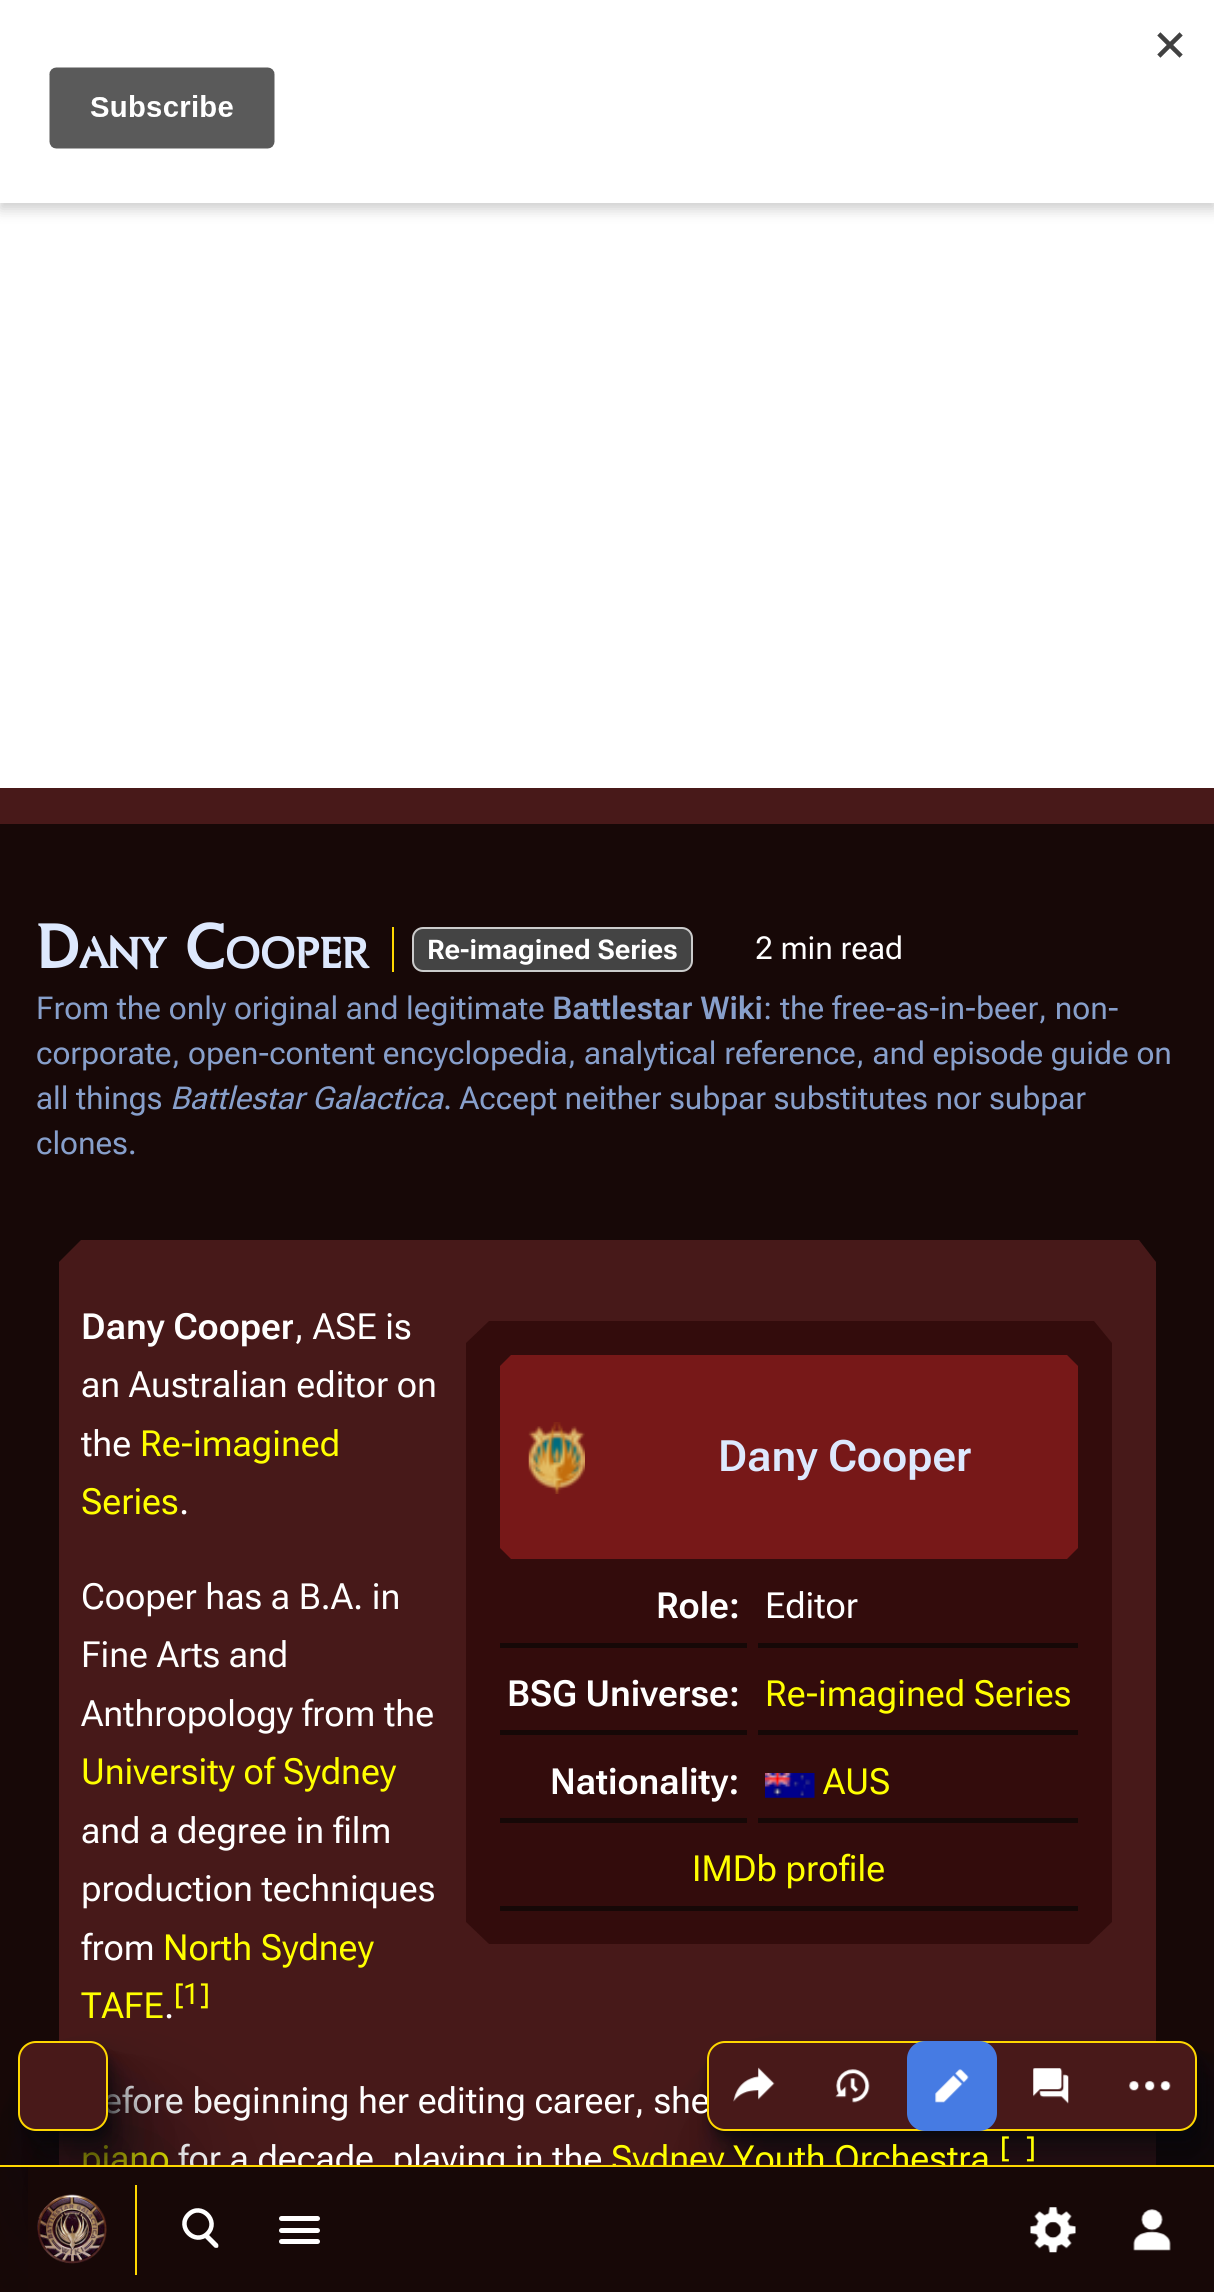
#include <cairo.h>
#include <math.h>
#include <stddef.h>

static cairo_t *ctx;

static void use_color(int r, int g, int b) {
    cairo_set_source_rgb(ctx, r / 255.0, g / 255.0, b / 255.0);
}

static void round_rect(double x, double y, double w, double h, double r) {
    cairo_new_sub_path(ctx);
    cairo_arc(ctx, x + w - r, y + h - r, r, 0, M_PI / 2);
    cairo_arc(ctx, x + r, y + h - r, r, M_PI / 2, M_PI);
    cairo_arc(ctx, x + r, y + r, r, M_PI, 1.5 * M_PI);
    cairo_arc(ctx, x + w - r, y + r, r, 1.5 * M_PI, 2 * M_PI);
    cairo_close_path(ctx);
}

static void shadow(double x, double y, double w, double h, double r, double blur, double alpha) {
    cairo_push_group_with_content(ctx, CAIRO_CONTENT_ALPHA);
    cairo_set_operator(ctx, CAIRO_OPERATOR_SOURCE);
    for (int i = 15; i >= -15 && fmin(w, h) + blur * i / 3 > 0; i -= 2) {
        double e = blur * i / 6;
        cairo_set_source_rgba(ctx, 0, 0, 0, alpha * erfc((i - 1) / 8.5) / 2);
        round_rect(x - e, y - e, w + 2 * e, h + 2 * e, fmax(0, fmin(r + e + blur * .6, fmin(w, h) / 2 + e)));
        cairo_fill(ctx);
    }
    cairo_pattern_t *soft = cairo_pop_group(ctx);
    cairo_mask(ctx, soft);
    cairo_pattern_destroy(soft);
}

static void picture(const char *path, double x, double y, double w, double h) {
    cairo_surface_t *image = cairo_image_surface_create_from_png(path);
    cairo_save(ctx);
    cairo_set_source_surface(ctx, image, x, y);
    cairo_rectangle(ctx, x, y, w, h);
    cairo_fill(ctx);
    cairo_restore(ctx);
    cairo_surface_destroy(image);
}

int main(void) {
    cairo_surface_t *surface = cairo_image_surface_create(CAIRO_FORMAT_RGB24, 1214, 2292);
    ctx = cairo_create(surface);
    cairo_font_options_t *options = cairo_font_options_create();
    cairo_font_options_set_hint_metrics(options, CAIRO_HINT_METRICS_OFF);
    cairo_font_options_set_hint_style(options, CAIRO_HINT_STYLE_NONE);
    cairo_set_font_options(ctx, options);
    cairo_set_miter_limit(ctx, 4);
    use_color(23, 8, 7);
    cairo_paint(ctx);
    use_color(255, 255, 255);
    cairo_rectangle(ctx, 0, 203, 1214, 585);
    cairo_fill(ctx);
    use_color(0, 0, 0);
    shadow(0, 7, 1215, 202, 0, 7, 0.2);
    use_color(255, 255, 255);
    cairo_rectangle(ctx, 0, 0, 1214, 203);
    cairo_fill(ctx);
    picture("img1.png", 49, 32, 1134, 117);
    use_color(72, 25, 25);
    cairo_rectangle(ctx, 0, 788, 1214, 36);
    cairo_fill(ctx);
    cairo_select_font_face(ctx, "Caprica", CAIRO_FONT_SLANT_NORMAL, CAIRO_FONT_WEIGHT_BOLD);
    cairo_set_font_size(ctx, 63);
    use_color(221, 232, 253);
    cairo_move_to(ctx, 36, 968);
    cairo_show_text(ctx, "D");
    cairo_set_font_size(ctx, 44);
    cairo_move_to(ctx, 79, 968);
    cairo_show_text(ctx, "ANY");
    cairo_set_font_size(ctx, 63);
    cairo_move_to(ctx, 185, 968);
    cairo_show_text(ctx, "C");
    cairo_set_font_size(ctx, 44);
    cairo_move_to(ctx, 225, 968);
    cairo_show_text(ctx, "OOPER");
    use_color(255, 215, 0);
    cairo_rectangle(ctx, 392, 927, 2, 45);
    cairo_fill(ctx);
    use_color(68, 68, 68);
    round_rect(413, 928, 279, 43, 10);
    cairo_fill_preserve(ctx);
    use_color(204, 204, 204);
    cairo_stroke(ctx);
    cairo_select_font_face(ctx, "Roboto Flex", CAIRO_FONT_SLANT_NORMAL, CAIRO_FONT_WEIGHT_BOLD);
    cairo_set_font_size(ctx, 27);
    use_color(255, 255, 255);
    cairo_move_to(ctx, 427, 959);
    cairo_show_text(ctx, "Re-imagined Series");
    cairo_select_font_face(ctx, "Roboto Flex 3", CAIRO_FONT_SLANT_NORMAL, CAIRO_FONT_WEIGHT_NORMAL);
    cairo_set_font_size(ctx, 31.5);
    cairo_move_to(ctx, 755, 959);
    cairo_show_text(ctx, "2 min read");
    use_color(135, 159, 203);
    cairo_move_to(ctx, 36, 1019);
    cairo_show_text(ctx, "From the only original and legitimate");
    cairo_select_font_face(ctx, "Roboto Flex 3 SemiBold", CAIRO_FONT_SLANT_NORMAL, CAIRO_FONT_WEIGHT_NORMAL);
    cairo_move_to(ctx, 552, 1019);
    cairo_show_text(ctx, "Battlestar Wiki");
    cairo_select_font_face(ctx, "Roboto Flex 3", CAIRO_FONT_SLANT_NORMAL, CAIRO_FONT_WEIGHT_NORMAL);
    cairo_move_to(ctx, 763, 1019);
    cairo_show_text(ctx, ": the free-as-in-beer, non-");
    cairo_move_to(ctx, 36, 1064);
    cairo_show_text(ctx, "corporate, open-content encyclopedia, analytical reference, and episode guide on");
    cairo_move_to(ctx, 36, 1109);
    cairo_show_text(ctx, "all things");
    cairo_select_font_face(ctx, "Roboto Flex", CAIRO_FONT_SLANT_ITALIC, CAIRO_FONT_WEIGHT_NORMAL);
    cairo_move_to(ctx, 170, 1109);
    cairo_show_text(ctx, "Battlestar Galactica");
    cairo_select_font_face(ctx, "Roboto Flex 3", CAIRO_FONT_SLANT_NORMAL, CAIRO_FONT_WEIGHT_NORMAL);
    cairo_move_to(ctx, 443, 1109);
    cairo_show_text(ctx, ". Accept neither subpar substitutes nor subpar");
    cairo_move_to(ctx, 36, 1154);
    cairo_show_text(ctx, "clones.");
    use_color(71, 25, 25);
    cairo_new_path(ctx);
    cairo_move_to(ctx, 1139, 1240);
    cairo_line_to(ctx, 1156, 1262);
    cairo_line_to(ctx, 1156, 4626);
    cairo_line_to(ctx, 1134, 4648);
    cairo_line_to(ctx, 81, 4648);
    cairo_line_to(ctx, 59, 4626);
    cairo_line_to(ctx, 59, 1262);
    cairo_line_to(ctx, 81, 1240);
    cairo_close_path(ctx);
    cairo_fill(ctx);
    use_color(4, 6, 11);
    shadow(770, 2160, 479, 79, 14, 71, 0.3);
    shadow(749, 2122, 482, 81, 14, 48, 0.3);
    shadow(736, 2095, 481, 81, 14, 31.5, 0.3);
    shadow(727, 2077, 484, 83, 16, 20, 0.3);
    shadow(720, 2063, 484, 86, 16, 12.5, 0.3);
    shadow(713, 2054, 489, 88, 16, 7.5, 0.3);
    shadow(711, 2048, 488, 90, 18, 4, 0.3);
    shadow(707, 2043, 490, 90, 18, 1, 0.3);
    cairo_select_font_face(ctx, "Roboto Flex", CAIRO_FONT_SLANT_NORMAL, CAIRO_FONT_WEIGHT_NORMAL);
    cairo_set_font_size(ctx, 36);
    use_color(255, 255, 255);
    cairo_move_to(ctx, 103, 2113);
    cairo_show_text(ctx, "efore beginning her editing career, she");
    use_color(72, 25, 25);
    round_rect(708, 2042, 488, 88, 17);
    cairo_fill_preserve(ctx);
    use_color(255, 215, 0);
    cairo_stroke(ctx);
    picture("img2.png", 733, 2067, 42, 35);
    picture("img3.png", 835, 2069, 35, 34);
    use_color(70, 123, 227);
    round_rect(907, 2041, 90, 90, 18);
    cairo_fill(ctx);
    picture("img4.png", 935, 2069, 34, 34);
    picture("img5.png", 1033, 2068, 36, 36);
    picture("img6.png", 1129, 2081, 42, 10);
    cairo_select_font_face(ctx, "Roboto Flex SemiBold", CAIRO_FONT_SLANT_NORMAL, CAIRO_FONT_WEIGHT_NORMAL);
    use_color(255, 255, 255);
    cairo_move_to(ctx, 81, 1339);
    cairo_show_text(ctx, "Dany Cooper");
    cairo_select_font_face(ctx, "Roboto Flex", CAIRO_FONT_SLANT_NORMAL, CAIRO_FONT_WEIGHT_NORMAL);
    cairo_move_to(ctx, 294, 1339);
    cairo_show_text(ctx, ", ASE is");
    cairo_move_to(ctx, 81, 1397);
    cairo_show_text(ctx, "an Australian editor on");
    cairo_move_to(ctx, 81, 1456);
    cairo_show_text(ctx, "the");
    use_color(255, 255, 0);
    cairo_move_to(ctx, 140, 1456);
    cairo_show_text(ctx, "Re-imagined");
    cairo_move_to(ctx, 81, 1514);
    cairo_show_text(ctx, "Series");
    use_color(255, 255, 255);
    cairo_move_to(ctx, 179, 1514);
    cairo_show_text(ctx, ".");
    cairo_move_to(ctx, 81, 1609);
    cairo_show_text(ctx, "Cooper has a B.A. in");
    cairo_move_to(ctx, 81, 1667);
    cairo_show_text(ctx, "Fine Arts and");
    cairo_move_to(ctx, 81, 1726);
    cairo_show_text(ctx, "Anthropology from the");
    use_color(255, 255, 0);
    cairo_move_to(ctx, 81, 1784);
    cairo_show_text(ctx, "University of Sydney");
    use_color(255, 255, 255);
    cairo_move_to(ctx, 81, 1843);
    cairo_show_text(ctx, "and a degree in film");
    cairo_move_to(ctx, 81, 1901);
    cairo_show_text(ctx, "production techniques");
    cairo_move_to(ctx, 81, 1960);
    cairo_show_text(ctx, "from");
    use_color(255, 255, 0);
    cairo_move_to(ctx, 163, 1960);
    cairo_show_text(ctx, "North Sydney");
    cairo_move_to(ctx, 81, 2018);
    cairo_show_text(ctx, "TAFE");
    use_color(255, 255, 255);
    cairo_move_to(ctx, 164, 2018);
    cairo_show_text(ctx, ".");
    cairo_select_font_face(ctx, "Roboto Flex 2", CAIRO_FONT_SLANT_NORMAL, CAIRO_FONT_WEIGHT_NORMAL);
    cairo_set_font_size(ctx, 29);
    use_color(255, 255, 0);
    cairo_move_to(ctx, 174, 2004);
    cairo_show_text(ctx, "[");
    cairo_select_font_face(ctx, "Roboto Flex 3", CAIRO_FONT_SLANT_NORMAL, CAIRO_FONT_WEIGHT_NORMAL);
    cairo_move_to(ctx, 183, 2004);
    cairo_show_text(ctx, "1");
    cairo_select_font_face(ctx, "Roboto Flex 2", CAIRO_FONT_SLANT_NORMAL, CAIRO_FONT_WEIGHT_NORMAL);
    cairo_move_to(ctx, 200, 2004);
    cairo_show_text(ctx, "]");
    use_color(51, 12, 12);
    cairo_new_path(ctx);
    cairo_move_to(ctx, 466, 1343);
    cairo_line_to(ctx, 466, 1922);
    cairo_line_to(ctx, 489, 1944);
    cairo_line_to(ctx, 1089, 1944);
    cairo_line_to(ctx, 1112, 1922);
    cairo_line_to(ctx, 1112, 1343);
    cairo_line_to(ctx, 1094, 1321);
    cairo_line_to(ctx, 489, 1321);
    cairo_close_path(ctx);
    cairo_fill(ctx);
    use_color(119, 24, 24);
    cairo_new_path(ctx);
    cairo_move_to(ctx, 500, 1366);
    cairo_line_to(ctx, 500, 1548);
    cairo_line_to(ctx, 511, 1559);
    cairo_line_to(ctx, 1067, 1559);
    cairo_line_to(ctx, 1078, 1548);
    cairo_line_to(ctx, 1078, 1366);
    cairo_line_to(ctx, 1067, 1355);
    cairo_line_to(ctx, 511, 1355);
    cairo_close_path(ctx);
    cairo_fill(ctx);
    picture("img7.png", 528, 1422, 57, 72);
    cairo_select_font_face(ctx, "Roboto Flex 2 SemiBold", CAIRO_FONT_SLANT_NORMAL, CAIRO_FONT_WEIGHT_NORMAL);
    cairo_set_font_size(ctx, 43.25);
    use_color(221, 232, 253);
    cairo_move_to(ctx, 718, 1471);
    cairo_show_text(ctx, "Dany Cooper");
    use_color(22, 8, 7);
    cairo_rectangle(ctx, 500, 1643, 247, 5);
    cairo_fill(ctx);
    cairo_select_font_face(ctx, "Roboto Flex SemiBold", CAIRO_FONT_SLANT_NORMAL, CAIRO_FONT_WEIGHT_NORMAL);
    cairo_set_font_size(ctx, 36);
    use_color(255, 255, 255);
    cairo_move_to(ctx, 656, 1618);
    cairo_show_text(ctx, "Role:");
    use_color(22, 8, 7);
    cairo_rectangle(ctx, 758, 1643, 320, 5);
    cairo_fill(ctx);
    cairo_select_font_face(ctx, "Roboto Flex", CAIRO_FONT_SLANT_NORMAL, CAIRO_FONT_WEIGHT_NORMAL);
    use_color(255, 255, 255);
    cairo_move_to(ctx, 765, 1618);
    cairo_show_text(ctx, "Editor");
    use_color(22, 8, 7);
    cairo_rectangle(ctx, 500, 1730, 247, 5);
    cairo_fill(ctx);
    cairo_select_font_face(ctx, "Roboto Flex SemiBold", CAIRO_FONT_SLANT_NORMAL, CAIRO_FONT_WEIGHT_NORMAL);
    use_color(255, 255, 255);
    cairo_move_to(ctx, 507, 1706);
    cairo_show_text(ctx, "BSG Universe:");
    use_color(22, 8, 7);
    cairo_rectangle(ctx, 758, 1730, 320, 5);
    cairo_fill(ctx);
    cairo_select_font_face(ctx, "Roboto Flex", CAIRO_FONT_SLANT_NORMAL, CAIRO_FONT_WEIGHT_NORMAL);
    use_color(255, 255, 0);
    cairo_move_to(ctx, 765, 1706);
    cairo_show_text(ctx, "Re-imagined Series");
    use_color(22, 8, 7);
    cairo_rectangle(ctx, 500, 1818, 247, 5);
    cairo_fill(ctx);
    cairo_select_font_face(ctx, "Roboto Flex SemiBold", CAIRO_FONT_SLANT_NORMAL, CAIRO_FONT_WEIGHT_NORMAL);
    use_color(255, 255, 255);
    cairo_move_to(ctx, 550, 1794);
    cairo_show_text(ctx, "Nationality:");
    use_color(22, 8, 7);
    cairo_rectangle(ctx, 758, 1818, 320, 5);
    cairo_fill(ctx);
    picture("img8.png", 765, 1773, 50, 25);
    cairo_select_font_face(ctx, "Roboto Flex", CAIRO_FONT_SLANT_NORMAL, CAIRO_FONT_WEIGHT_NORMAL);
    use_color(255, 255, 0);
    cairo_move_to(ctx, 823, 1794);
    cairo_show_text(ctx, "AUS");
    use_color(22, 8, 7);
    cairo_rectangle(ctx, 500, 1906, 578, 5);
    cairo_fill(ctx);
    use_color(255, 255, 0);
    cairo_move_to(ctx, 692, 1881);
    cairo_show_text(ctx, "IMDb profile");
    cairo_move_to(ctx, 81, 2171);
    cairo_show_text(ctx, "piano");
    use_color(255, 255, 255);
    cairo_move_to(ctx, 178, 2171);
    cairo_show_text(ctx, "for a decade, playing in the");
    use_color(255, 255, 0);
    cairo_move_to(ctx, 611, 2171);
    cairo_show_text(ctx, "Sydney Youth Orchestra");
    cairo_select_font_face(ctx, "Roboto Flex 2", CAIRO_FONT_SLANT_NORMAL, CAIRO_FONT_WEIGHT_NORMAL);
    cairo_set_font_size(ctx, 29);
    cairo_move_to(ctx, 1000, 2157);
    cairo_show_text(ctx, "[");
    cairo_move_to(ctx, 1026, 2157);
    cairo_show_text(ctx, "]");
    use_color(4, 6, 11);
    shadow(81, 2160, 79, 79, 14, 71, 0.3);
    shadow(61, 2122, 81, 81, 14, 48, 0.3);
    shadow(47, 2095, 81, 81, 14, 31.5, 0.3);
    shadow(38, 2077, 84, 83, 16, 20, 0.3);
    shadow(32, 2063, 83, 86, 16, 12.5, 0.3);
    shadow(25, 2054, 88, 88, 16, 7.5, 0.3);
    shadow(23, 2048, 87, 90, 18, 4, 0.3);
    shadow(18, 2043, 90, 90, 18, 1, 0.3);
    use_color(72, 25, 25);
    round_rect(19, 2042, 88, 88, 17);
    cairo_fill_preserve(ctx);
    use_color(255, 215, 0);
    cairo_stroke(ctx);
    use_color(23, 8, 7);
    cairo_rectangle(ctx, 28, 2167, 1186, 125);
    cairo_fill(ctx);
    use_color(255, 215, 0);
    cairo_rectangle(ctx, 0, 2165, 1214, 2);
    cairo_fill(ctx);
    cairo_rectangle(ctx, 135, 2185, 2, 90);
    cairo_fill(ctx);
    picture("img9.png", 37, 2194, 70, 70);
    use_color(255, 255, 255);
    cairo_new_path(ctx);
    cairo_move_to(ctx, 205, 2234.5);
    cairo_curve_to(ctx, 206, 2234, 207.5, 2234, 208.5, 2234.5);
    cairo_line_to(ctx, 218, 2244);
    cairo_curve_to(ctx, 218.5, 2245, 218.5, 2246.5, 218, 2247.5);
    cairo_curve_to(ctx, 217, 2248, 215.5, 2248, 214.5, 2247.5);
    cairo_line_to(ctx, 205, 2238);
    cairo_curve_to(ctx, 204.5, 2237, 204.5, 2235.5, 205, 2234.5);
    cairo_close_path(ctx);
    cairo_fill(ctx);
    cairo_new_path(ctx);
    cairo_move_to(ctx, 188.5, 2214.5);
    cairo_curve_to(ctx, 201, 2202, 220, 2221, 207.5, 2233.5);
    cairo_curve_to(ctx, 195, 2246, 176, 2227, 188.5, 2214.5);
    cairo_close_path(ctx);
    cairo_set_line_width(ctx, 4.5);
    cairo_stroke(ctx);
    round_rect(279, 2216, 41, 5, 2.5);
    cairo_fill(ctx);
    round_rect(279, 2228, 41, 5, 2.5);
    cairo_fill(ctx);
    round_rect(279, 2239, 41, 5, 2.5);
    cairo_fill(ctx);
    picture("img10.png", 1030, 2207, 46, 46);
    picture("img11.png", 1133, 2209, 38, 42);
    cairo_surface_write_to_png(surface, "result.png");
    cairo_font_options_destroy(options);
    cairo_destroy(ctx);
    cairo_surface_destroy(surface);
    return 0;
}
